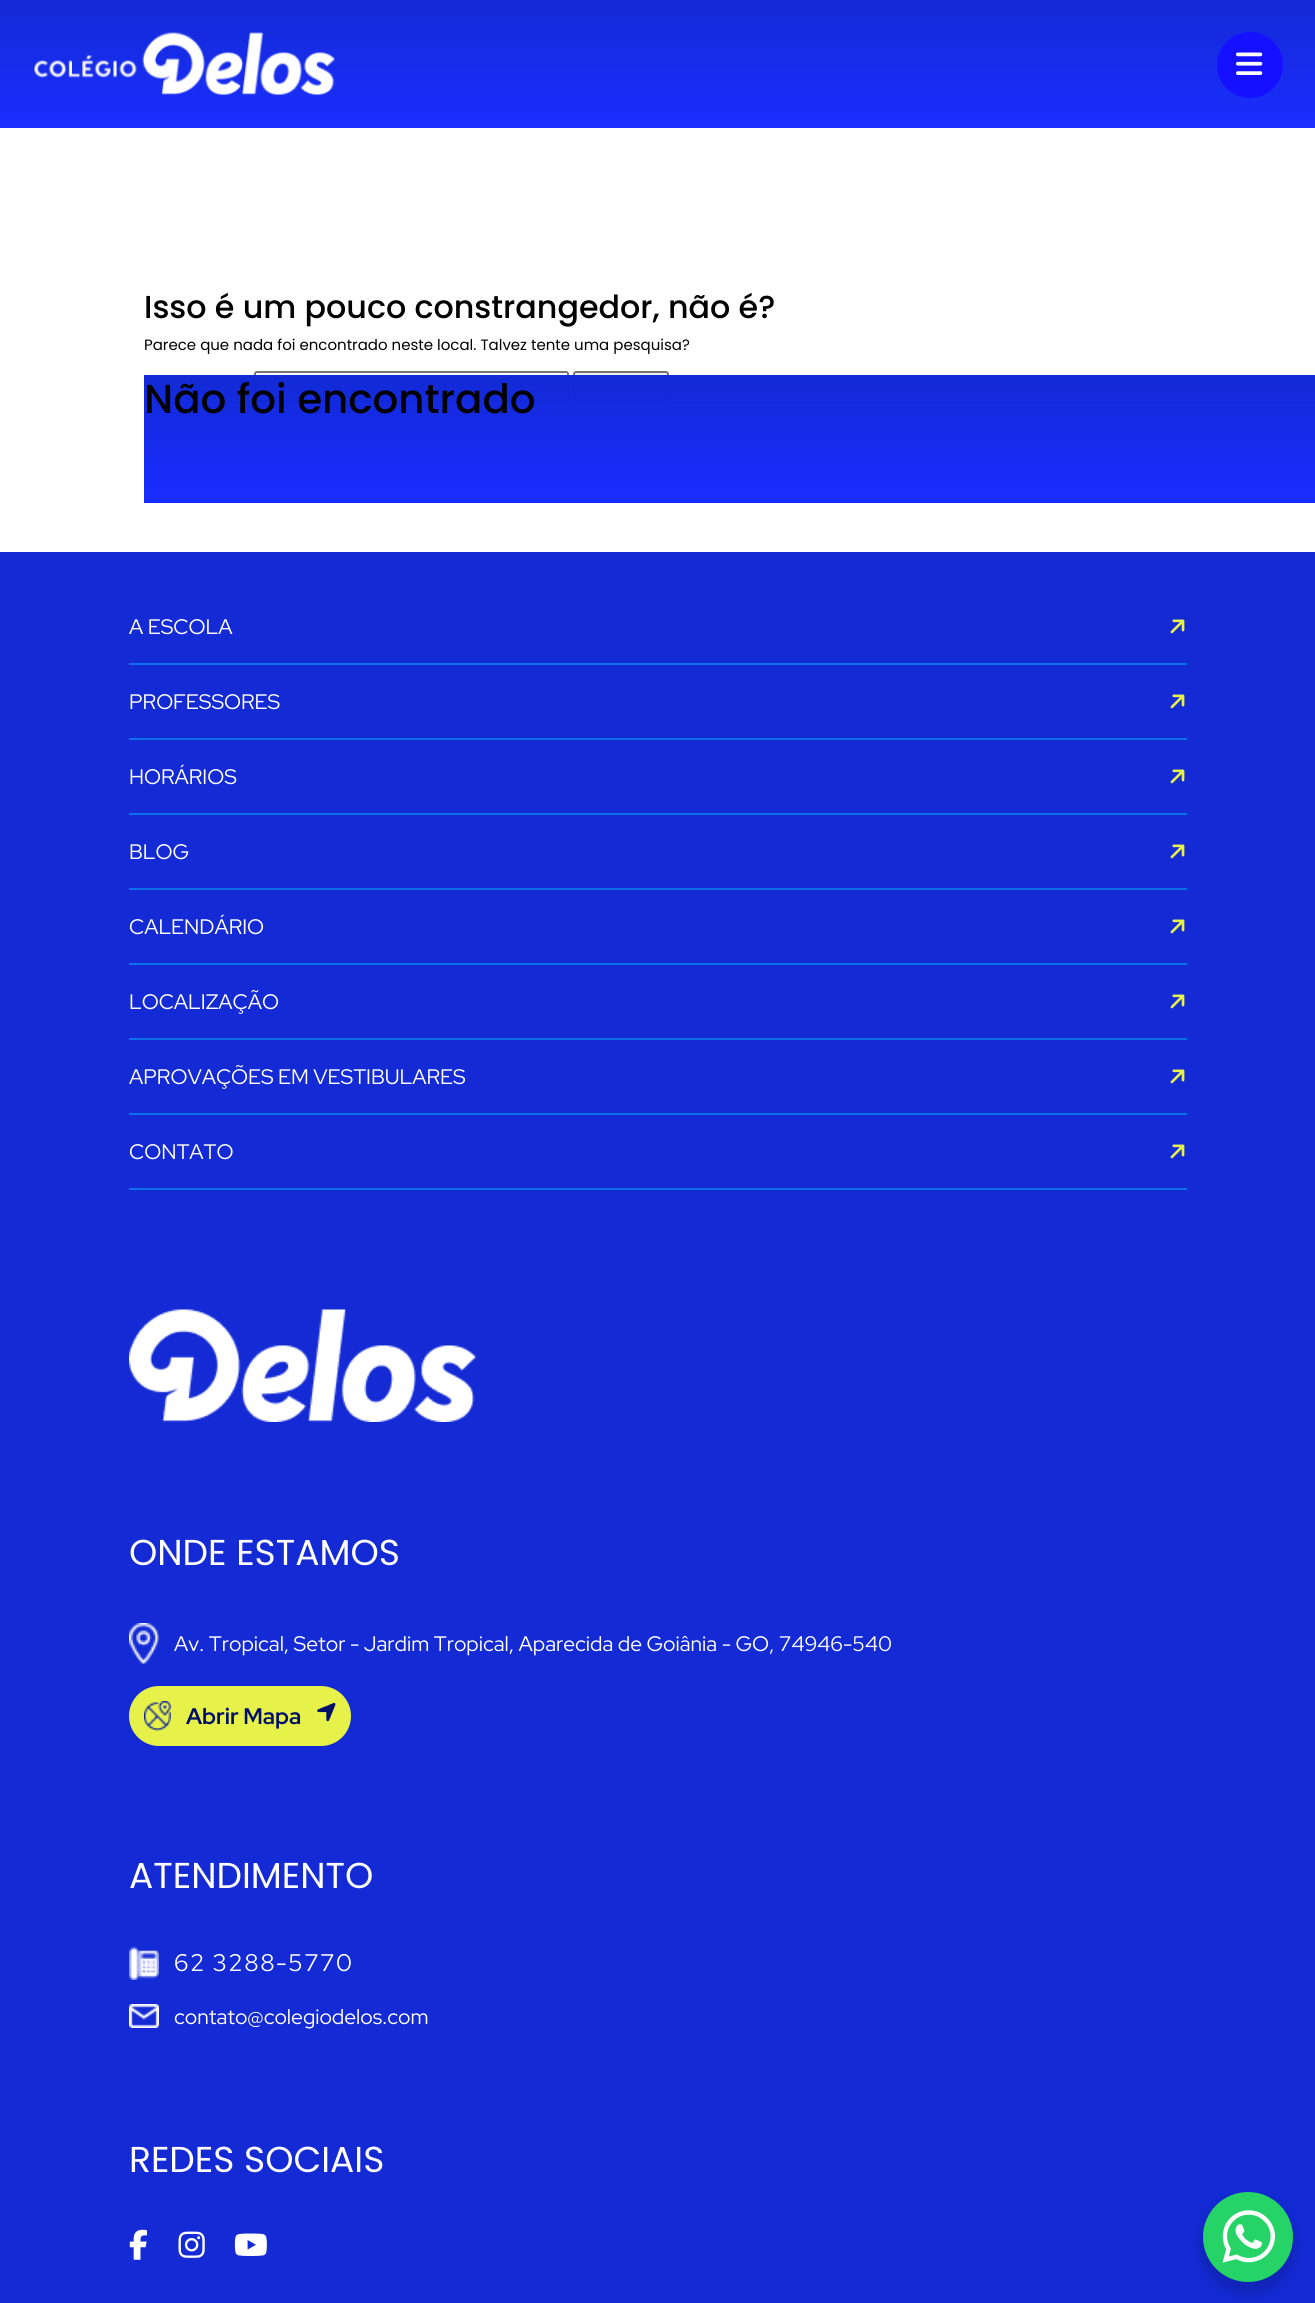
#include <cairo.h>
#include <math.h>
#include <stddef.h>

static cairo_t *ctx;

static void use_color(int r, int g, int b) {
    cairo_set_source_rgb(ctx, r / 255.0, g / 255.0, b / 255.0);
}

static void spaced_text(double x, double y, const char *s, double letter, double word) {
    cairo_move_to(ctx, x, y);
    while (*s) {
        char ch[5] = {0};
        int n = 0;
        do ch[n++] = *s++; while ((*s & 0xC0) == 0x80);
        cairo_show_text(ctx, ch);
        cairo_rel_move_to(ctx, letter + word * (*ch == ' '), 0);
    }
}

static void round_rect(double x, double y, double w, double h, double r) {
    cairo_new_sub_path(ctx);
    cairo_arc(ctx, x + w - r, y + h - r, r, 0, M_PI / 2);
    cairo_arc(ctx, x + r, y + h - r, r, M_PI / 2, M_PI);
    cairo_arc(ctx, x + r, y + r, r, M_PI, 1.5 * M_PI);
    cairo_arc(ctx, x + w - r, y + r, r, 1.5 * M_PI, 2 * M_PI);
    cairo_close_path(ctx);
}

static void shadow(double x, double y, double w, double h, double r, double blur, double alpha) {
    cairo_push_group_with_content(ctx, CAIRO_CONTENT_ALPHA);
    cairo_set_operator(ctx, CAIRO_OPERATOR_SOURCE);
    for (int i = 15; i >= -15 && fmin(w, h) + blur * i / 3 > 0; i -= 2) {
        double e = blur * i / 6;
        cairo_set_source_rgba(ctx, 0, 0, 0, alpha * erfc((i - 1) / 8.5) / 2);
        round_rect(x - e, y - e, w + 2 * e, h + 2 * e, fmax(0, fmin(r + e + blur * .6, fmin(w, h) / 2 + e)));
        cairo_fill(ctx);
    }
    cairo_pattern_t *soft = cairo_pop_group(ctx);
    cairo_mask(ctx, soft);
    cairo_pattern_destroy(soft);
}

static void picture(const char *path, double x, double y, double w, double h) {
    cairo_surface_t *image = cairo_image_surface_create_from_png(path);
    cairo_save(ctx);
    cairo_set_source_surface(ctx, image, x, y);
    cairo_rectangle(ctx, x, y, w, h);
    cairo_fill(ctx);
    cairo_restore(ctx);
    cairo_surface_destroy(image);
}

int main(void) {
    cairo_surface_t *surface = cairo_image_surface_create(CAIRO_FORMAT_RGB24, 1315, 2303);
    ctx = cairo_create(surface);
    cairo_font_options_t *options = cairo_font_options_create();
    cairo_font_options_set_hint_metrics(options, CAIRO_HINT_METRICS_OFF);
    cairo_font_options_set_hint_style(options, CAIRO_HINT_STYLE_NONE);
    cairo_set_font_options(ctx, options);
    cairo_set_miter_limit(ctx, 4);
    cairo_pattern_t *gradient;
    use_color(255, 255, 255);
    cairo_paint(ctx);
    gradient = cairo_pattern_create_linear(658, 0, 658, 128);
    cairo_pattern_add_color_stop_rgba(gradient, 0, 0.075, 0.165, 0.835, 1);
    cairo_pattern_add_color_stop_rgba(gradient, 1, 0.102, 0.18, 1, 1);
    cairo_set_source(ctx, gradient);
    cairo_pattern_destroy(gradient);
    cairo_rectangle(ctx, 0, 0, 1315, 128);
    cairo_fill(ctx);
    picture("img1.png", 34, 32, 301, 64);
    use_color(21, 16, 255);
    cairo_arc(ctx, 1250, 65, 33, 0, 2 * M_PI);
    cairo_fill(ctx);
    picture("img2.png", 1236, 52, 27, 23);
    cairo_select_font_face(ctx, "Poppins Medium", CAIRO_FONT_SLANT_NORMAL, CAIRO_FONT_WEIGHT_NORMAL);
    cairo_set_font_size(ctx, 31.75);
    use_color(0, 0, 0);
    cairo_move_to(ctx, 144, 318);
    cairo_show_text(ctx, "Isso é um pouco constrangedor, não é?");
    cairo_select_font_face(ctx, "Poppins", CAIRO_FONT_SLANT_NORMAL, CAIRO_FONT_WEIGHT_NORMAL);
    cairo_set_font_size(ctx, 15);
    cairo_move_to(ctx, 144, 350);
    cairo_show_text(ctx, "Parece que nada foi encontrado neste local. Talvez tente uma pesquisa?");
    round_rect(255, 372, 313, 29, 2);
    use_color(118, 118, 118);
    cairo_stroke(ctx);
    use_color(239, 239, 239);
    round_rect(574, 372, 94, 29, 2);
    cairo_fill_preserve(ctx);
    use_color(118, 118, 118);
    cairo_stroke(ctx);
    gradient = cairo_pattern_create_linear(802, 375, 802, 503);
    cairo_pattern_add_color_stop_rgba(gradient, 0, 0.075, 0.165, 0.835, 1);
    cairo_pattern_add_color_stop_rgba(gradient, 1, 0, 0.09, 1, 0.9);
    cairo_set_source(ctx, gradient);
    cairo_pattern_destroy(gradient);
    cairo_rectangle(ctx, 144, 375, 1171, 128);
    cairo_fill(ctx);
    cairo_select_font_face(ctx, "Poppins Medium", CAIRO_FONT_SLANT_NORMAL, CAIRO_FONT_WEIGHT_NORMAL);
    cairo_set_font_size(ctx, 40.4);
    use_color(0, 0, 0);
    cairo_move_to(ctx, 144, 413);
    cairo_show_text(ctx, "Não foi encontrado");
    use_color(19, 42, 213);
    cairo_rectangle(ctx, 0, 552, 1315, 1751);
    cairo_fill(ctx);
    use_color(13, 111, 234);
    cairo_rectangle(ctx, 129, 663, 1058, 2);
    cairo_fill(ctx);
    cairo_select_font_face(ctx, "Red Hat Display", CAIRO_FONT_SLANT_NORMAL, CAIRO_FONT_WEIGHT_NORMAL);
    cairo_set_font_size(ctx, 21);
    use_color(255, 255, 255);
    cairo_move_to(ctx, 129, 634);
    cairo_show_text(ctx, "A ESCOLA");
    picture("img3.png", 1170, 619, 15, 15);
    use_color(13, 111, 234);
    cairo_rectangle(ctx, 129, 738, 1058, 2);
    cairo_fill(ctx);
    use_color(255, 255, 255);
    cairo_move_to(ctx, 129, 709);
    cairo_show_text(ctx, "PROFESSORES");
    picture("img3.png", 1170, 694, 15, 15);
    use_color(13, 111, 234);
    cairo_rectangle(ctx, 129, 813, 1058, 2);
    cairo_fill(ctx);
    use_color(255, 255, 255);
    cairo_move_to(ctx, 129, 784);
    cairo_show_text(ctx, "HORÁRIOS");
    picture("img3.png", 1170, 769, 15, 15);
    use_color(13, 111, 234);
    cairo_rectangle(ctx, 129, 888, 1058, 2);
    cairo_fill(ctx);
    use_color(255, 255, 255);
    cairo_move_to(ctx, 129, 859);
    cairo_show_text(ctx, "BLOG");
    picture("img3.png", 1170, 844, 15, 15);
    use_color(13, 111, 234);
    cairo_rectangle(ctx, 129, 963, 1058, 2);
    cairo_fill(ctx);
    use_color(255, 255, 255);
    cairo_move_to(ctx, 129, 934);
    cairo_show_text(ctx, "CALENDÁRIO");
    picture("img3.png", 1170, 919, 15, 15);
    use_color(13, 111, 234);
    cairo_rectangle(ctx, 129, 1038, 1058, 2);
    cairo_fill(ctx);
    use_color(255, 255, 255);
    cairo_move_to(ctx, 129, 1009);
    cairo_show_text(ctx, "LOCALIZAÇÃO");
    picture("img3.png", 1170, 994, 15, 15);
    use_color(13, 111, 234);
    cairo_rectangle(ctx, 129, 1113, 1058, 2);
    cairo_fill(ctx);
    use_color(255, 255, 255);
    cairo_move_to(ctx, 129, 1084);
    cairo_show_text(ctx, "APROVAÇÕES EM VESTIBULARES");
    picture("img3.png", 1170, 1069, 15, 15);
    use_color(13, 111, 234);
    cairo_rectangle(ctx, 129, 1188, 1058, 2);
    cairo_fill(ctx);
    use_color(255, 255, 255);
    cairo_move_to(ctx, 129, 1159);
    cairo_show_text(ctx, "CONTATO");
    picture("img3.png", 1170, 1144, 15, 15);
    picture("img4.png", 129, 1309, 347, 113);
    cairo_select_font_face(ctx, "Poppins", CAIRO_FONT_SLANT_NORMAL, CAIRO_FONT_WEIGHT_NORMAL);
    cairo_set_font_size(ctx, 36);
    cairo_move_to(ctx, 129, 1565);
    cairo_show_text(ctx, "ONDE ESTAMOS");
    picture("img5.png", 129, 1623, 30, 41);
    cairo_select_font_face(ctx, "Red Hat Display", CAIRO_FONT_SLANT_NORMAL, CAIRO_FONT_WEIGHT_NORMAL);
    cairo_set_font_size(ctx, 21);
    cairo_move_to(ctx, 174, 1651);
    cairo_show_text(ctx, "Av. Tropical, Setor - Jardim Tropical, Aparecida de Goiânia - GO, 74946-540");
    use_color(230, 241, 74);
    round_rect(129, 1686, 222, 60, 30);
    cairo_fill(ctx);
    picture("img6.png", 144, 1701, 27, 30);
    cairo_select_font_face(ctx, "Red Hat Display", CAIRO_FONT_SLANT_NORMAL, CAIRO_FONT_WEIGHT_BOLD);
    cairo_set_font_size(ctx, 22.5);
    use_color(0, 14, 103);
    cairo_move_to(ctx, 186, 1724);
    cairo_show_text(ctx, "Abrir Mapa");
    picture("img7.png", 317, 1702, 19, 20);
    cairo_select_font_face(ctx, "Poppins", CAIRO_FONT_SLANT_NORMAL, CAIRO_FONT_WEIGHT_NORMAL);
    cairo_set_font_size(ctx, 36);
    use_color(255, 255, 255);
    cairo_move_to(ctx, 129, 1888);
    cairo_show_text(ctx, "ATENDIMENTO");
    picture("img8.png", 129, 1947, 30, 33);
    cairo_select_font_face(ctx, "Red Hat Display", CAIRO_FONT_SLANT_NORMAL, CAIRO_FONT_WEIGHT_NORMAL);
    cairo_set_font_size(ctx, 24);
    spaced_text(174, 1971, "62 3288-5770", 1.5, 0);
    picture("img9.png", 129, 2004, 30, 24);
    cairo_set_font_size(ctx, 21);
    cairo_move_to(ctx, 174, 2024);
    cairo_show_text(ctx, "contato@colegiodelos.com");
    cairo_select_font_face(ctx, "Poppins", CAIRO_FONT_SLANT_NORMAL, CAIRO_FONT_WEIGHT_NORMAL);
    cairo_set_font_size(ctx, 36);
    cairo_move_to(ctx, 129, 2172);
    cairo_show_text(ctx, "REDES SOCIAIS");
    picture("img10.png", 129, 2229, 18, 31);
    picture("img11.png", 178, 2231, 27, 27);
    picture("img12.png", 234, 2233, 33, 23);
    use_color(0, 0, 0);
    shadow(1200, 2198, 96, 96, 48, 6, 0.15);
    use_color(37, 211, 102);
    cairo_arc(ctx, 1248, 2237, 45, 0, 2 * M_PI);
    cairo_fill(ctx);
    picture("img13.png", 1222, 2210, 53, 53);
    cairo_surface_write_to_png(surface, "result.png");
    cairo_font_options_destroy(options);
    cairo_destroy(ctx);
    cairo_surface_destroy(surface);
    return 0;
}
